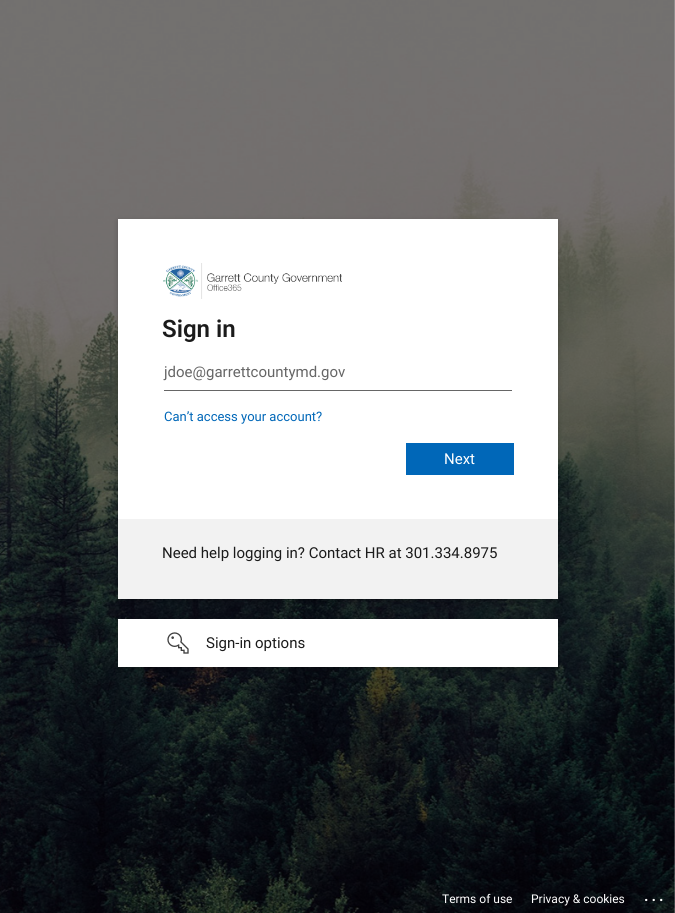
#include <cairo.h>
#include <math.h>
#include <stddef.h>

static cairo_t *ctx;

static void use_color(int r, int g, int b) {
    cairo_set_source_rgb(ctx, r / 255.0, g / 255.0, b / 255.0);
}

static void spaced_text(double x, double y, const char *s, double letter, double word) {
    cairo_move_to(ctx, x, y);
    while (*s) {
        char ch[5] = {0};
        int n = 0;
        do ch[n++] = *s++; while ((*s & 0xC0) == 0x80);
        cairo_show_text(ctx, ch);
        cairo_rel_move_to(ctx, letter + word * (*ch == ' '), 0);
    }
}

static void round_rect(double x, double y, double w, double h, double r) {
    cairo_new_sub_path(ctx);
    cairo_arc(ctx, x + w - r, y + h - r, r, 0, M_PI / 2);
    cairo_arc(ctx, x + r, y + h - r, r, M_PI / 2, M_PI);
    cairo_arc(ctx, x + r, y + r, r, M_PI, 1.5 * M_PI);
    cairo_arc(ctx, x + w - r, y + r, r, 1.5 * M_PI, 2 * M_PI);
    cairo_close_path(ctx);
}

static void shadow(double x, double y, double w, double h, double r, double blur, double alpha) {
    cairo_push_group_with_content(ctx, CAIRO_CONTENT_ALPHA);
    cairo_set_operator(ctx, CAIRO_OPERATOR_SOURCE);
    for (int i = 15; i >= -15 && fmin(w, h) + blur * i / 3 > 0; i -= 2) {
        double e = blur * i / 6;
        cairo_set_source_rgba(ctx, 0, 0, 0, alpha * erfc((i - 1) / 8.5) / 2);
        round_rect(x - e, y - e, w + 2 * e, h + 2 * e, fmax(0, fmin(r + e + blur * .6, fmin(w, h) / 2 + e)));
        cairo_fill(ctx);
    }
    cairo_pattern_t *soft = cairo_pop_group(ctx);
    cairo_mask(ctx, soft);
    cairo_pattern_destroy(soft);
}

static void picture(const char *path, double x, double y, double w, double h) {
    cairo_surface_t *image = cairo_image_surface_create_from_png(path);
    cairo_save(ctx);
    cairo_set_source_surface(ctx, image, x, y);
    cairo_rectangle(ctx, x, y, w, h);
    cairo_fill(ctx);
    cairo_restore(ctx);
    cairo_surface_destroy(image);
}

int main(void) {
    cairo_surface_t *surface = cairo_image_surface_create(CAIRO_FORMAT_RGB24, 675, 913);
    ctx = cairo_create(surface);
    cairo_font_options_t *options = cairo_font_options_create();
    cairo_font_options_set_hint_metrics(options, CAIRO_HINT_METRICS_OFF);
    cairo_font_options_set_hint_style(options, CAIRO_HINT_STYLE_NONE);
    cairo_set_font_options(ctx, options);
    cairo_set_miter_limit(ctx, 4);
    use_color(255, 255, 255);
    cairo_paint(ctx);
    picture("img1.png", 0, 0, 675, 913);
    use_color(0, 0, 0);
    shadow(118, 221, 440, 380, 0, 3, 0.2);
    use_color(255, 255, 255);
    cairo_rectangle(ctx, 118, 219, 440, 300);
    cairo_fill(ctx);
    picture("img2.png", 163, 263, 179, 36);
    cairo_select_font_face(ctx, "Roboto SemiBold", CAIRO_FONT_SLANT_NORMAL, CAIRO_FONT_WEIGHT_NORMAL);
    cairo_set_font_size(ctx, 24);
    use_color(27, 27, 27);
    cairo_move_to(ctx, 162, 337);
    cairo_show_text(ctx, "Sign in");
    use_color(102, 102, 102);
    cairo_rectangle(ctx, 164, 390, 348, 1);
    cairo_fill(ctx);
    cairo_select_font_face(ctx, "Roboto", CAIRO_FONT_SLANT_NORMAL, CAIRO_FONT_WEIGHT_NORMAL);
    cairo_set_font_size(ctx, 15);
    cairo_move_to(ctx, 164, 377);
    cairo_show_text(ctx, "jdoe@garrettcountymd.gov");
    cairo_set_font_size(ctx, 13);
    use_color(0, 103, 184);
    cairo_move_to(ctx, 164, 421);
    cairo_show_text(ctx, "Can’t access your account?");
    cairo_rectangle(ctx, 406, 443, 108, 32);
    cairo_fill(ctx);
    cairo_set_font_size(ctx, 15);
    use_color(255, 255, 255);
    cairo_move_to(ctx, 444, 464);
    cairo_show_text(ctx, "Next");
    use_color(242, 242, 242);
    cairo_rectangle(ctx, 118, 519, 440, 80);
    cairo_fill(ctx);
    use_color(27, 27, 27);
    cairo_move_to(ctx, 162, 558);
    cairo_show_text(ctx, "Need help logging in? Contact HR at 301.334.8975");
    use_color(0, 0, 0);
    shadow(118, 621, 440, 48, 0, 3, 0.2);
    use_color(255, 255, 255);
    cairo_rectangle(ctx, 118, 619, 440, 48);
    cairo_fill(ctx);
    picture("img3.png", 167, 632, 22, 22);
    use_color(27, 27, 27);
    cairo_move_to(ctx, 206, 648);
    cairo_show_text(ctx, "Sign-in options");
    cairo_set_font_size(ctx, 12);
    use_color(255, 255, 255);
    cairo_move_to(ctx, 442, 903);
    cairo_show_text(ctx, "Terms of use");
    cairo_move_to(ctx, 531, 903);
    cairo_show_text(ctx, "Privacy & cookies");
    cairo_select_font_face(ctx, "Roboto SemiBold", CAIRO_FONT_SLANT_NORMAL, CAIRO_FONT_WEIGHT_NORMAL);
    cairo_set_font_size(ctx, 16);
    spaced_text(644, 901, "...", 3, 0);
    cairo_surface_write_to_png(surface, "result.png");
    cairo_font_options_destroy(options);
    cairo_destroy(ctx);
    cairo_surface_destroy(surface);
    return 0;
}
